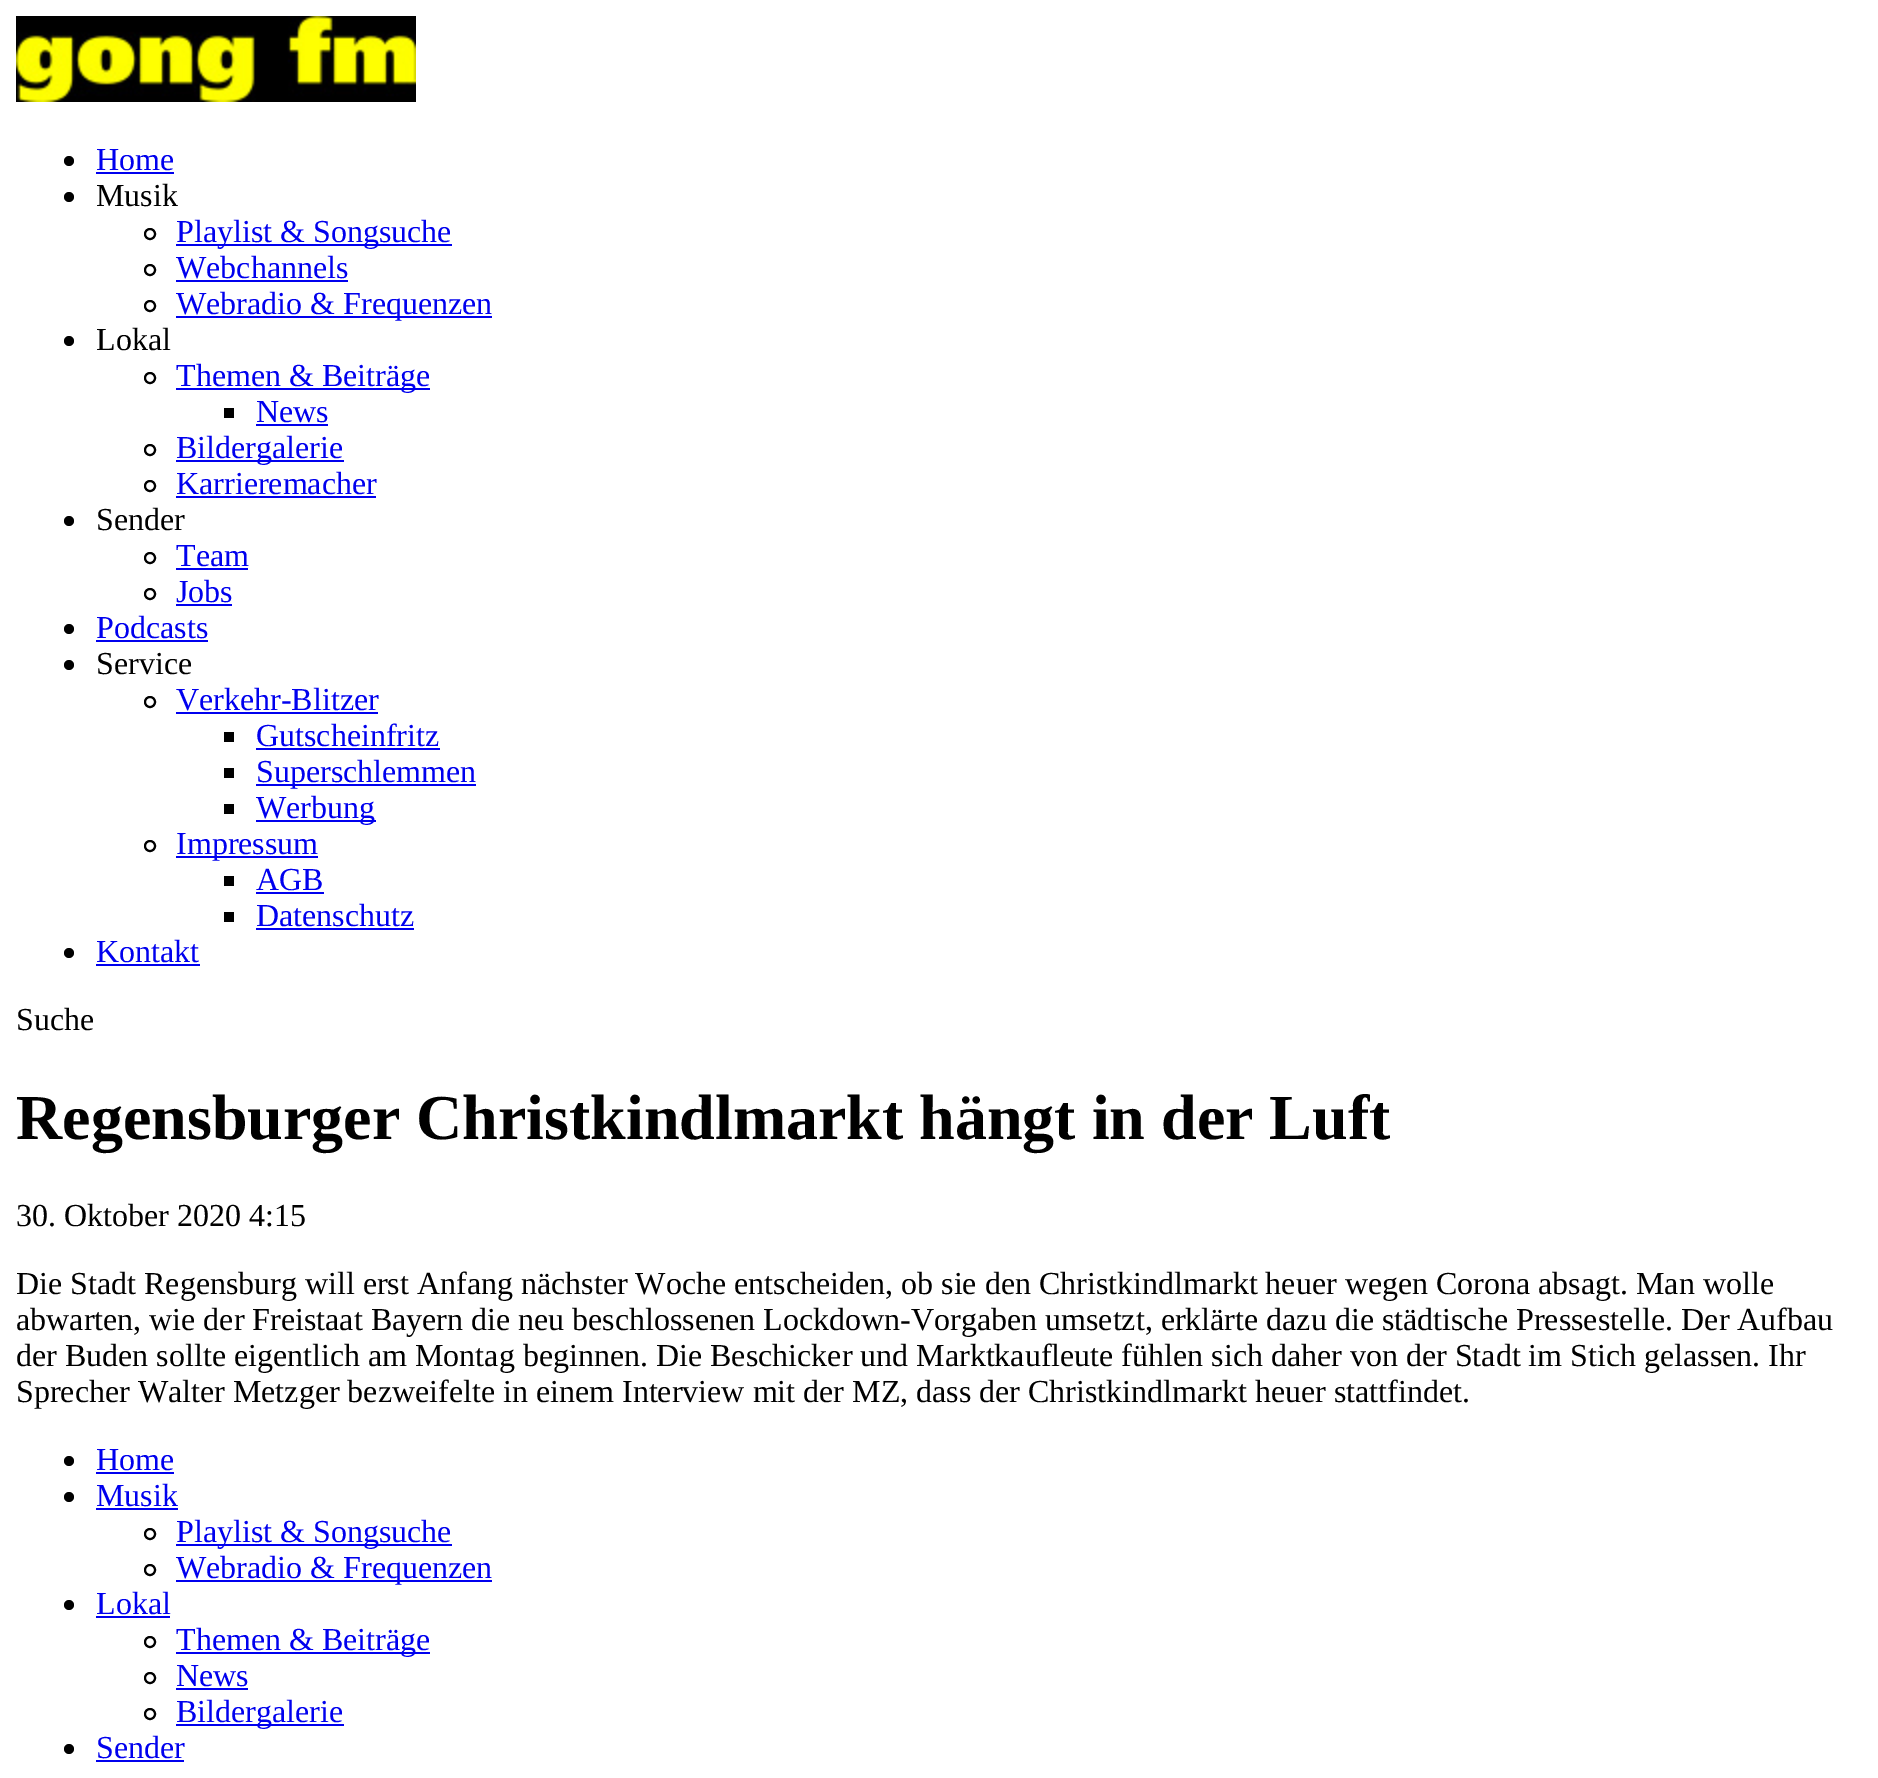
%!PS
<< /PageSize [1878 1778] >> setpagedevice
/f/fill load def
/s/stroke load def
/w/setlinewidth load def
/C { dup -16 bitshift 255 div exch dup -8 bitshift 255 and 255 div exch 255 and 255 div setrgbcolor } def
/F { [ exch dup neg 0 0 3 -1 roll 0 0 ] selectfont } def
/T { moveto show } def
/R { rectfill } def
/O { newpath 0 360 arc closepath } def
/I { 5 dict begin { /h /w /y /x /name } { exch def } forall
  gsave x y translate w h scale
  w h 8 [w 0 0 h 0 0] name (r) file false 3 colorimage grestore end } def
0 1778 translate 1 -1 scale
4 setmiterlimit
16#FFFFFF C
0 0 1878 1778 R
(1.rgb) 16 16 400 86 I
16#000000 C
69 161 5 O f
/LiberationSerif-Regular 32 F
16#0000EE C
(Home) 96 170 T
96 172 78 2 R
16#000000 C
69 197 5 O f
(Musik) 96 206 T
2 w
150 234 5 O s
16#0000EE C
176 244 276 2 R
(Playlist & Songsuche) 176 242 T
16#000000 C
150 270 5 O s
16#0000EE C
(Webchannels) 176 278 T
176 280 172 2 R
16#000000 C
150 306 5 O s
16#0000EE C
176 316 316 2 R
(Webradio & Frequenzen) 176 314 T
16#000000 C
69 341 5 O f
(Lokal) 96 350 T
150 378 5 O s
16#0000EE C
176 388 254 2 R
(Themen & Beiträge) 176 386 T
16#000000 C
224 408 10 10 R
16#0000EE C
(News) 256 422 T
256 424 72 2 R
16#000000 C
150 450 5 O s
16#0000EE C
176 460 168 2 R
(Bildergalerie) 176 458 T
16#000000 C
150 486 5 O s
16#0000EE C
(Karrieremacher) 176 494 T
176 496 200 2 R
16#000000 C
69 521 5 O f
(Sender) 96 530 T
150 558 5 O s
16#0000EE C
(Team) 176 566 T
176 568 72 2 R
16#000000 C
150 594 5 O s
16#0000EE C
(Jobs) 176 602 T
176 604 56 2 R
16#000000 C
69 629 5 O f
16#0000EE C
(Podcasts) 96 638 T
96 640 112 2 R
16#000000 C
69 665 5 O f
(Service) 96 674 T
150 702 5 O s
16#0000EE C
(Verkehr-Blitzer) 176 710 T
176 712 202 2 R
16#000000 C
224 732 10 10 R
16#0000EE C
(Gutscheinfritz) 256 746 T
256 748 184 2 R
16#000000 C
224 768 10 10 R
16#0000EE C
256 784 220 2 R
(Superschlemmen) 256 782 T
16#000000 C
224 804 10 10 R
16#0000EE C
256 820 120 2 R
(Werbung) 256 818 T
16#000000 C
150 846 5 O s
16#0000EE C
176 856 142 2 R
(Impressum) 176 854 T
16#000000 C
224 876 10 10 R
16#0000EE C
(AGB) 256 890 T
256 892 68 2 R
16#000000 C
224 912 10 10 R
16#0000EE C
(Datenschutz) 256 926 T
256 928 158 2 R
16#000000 C
69 953 5 O f
16#0000EE C
(Kontakt) 96 962 T
96 964 104 2 R
16#000000 C
(Suche) 16 1030 T
/LiberationSerif-Bold 64 F
(Regensburger Christkindlmarkt hängt in der Luft) 16 1139 T
/LiberationSerif-Regular 32 F
(30. Oktober 2020 4:15) 16 1226 T
(Die Stadt Regensburg will erst Anfang nächster Woche entscheiden, ob sie den Christkindlmarkt heuer wegen Corona absagt. Man wolle) 16 1294 T
(abwarten, wie der Freistaat Bayern die neu beschlossenen Lockdown-Vorgaben umsetzt, erklärte dazu die städtische Pressestelle. Der Aufbau) 16 1330 T
(der Buden sollte eigentlich am Montag beginnen. Die Beschicker und Marktkaufleute fühlen sich daher von der Stadt im Stich gelassen. Ihr) 16 1366 T
(Sprecher Walter Metzger bezweifelte in einem Interview mit der MZ, dass der Christkindlmarkt heuer stattfindet.) 16 1402 T
69 1461 5 O f
16#0000EE C
(Home) 96 1470 T
96 1472 78 2 R
16#000000 C
69 1497 5 O f
16#0000EE C
(Musik) 96 1506 T
96 1508 82 2 R
16#000000 C
150 1534 5 O s
16#0000EE C
176 1544 276 2 R
(Playlist & Songsuche) 176 1542 T
16#000000 C
150 1570 5 O s
16#0000EE C
176 1580 316 2 R
(Webradio & Frequenzen) 176 1578 T
16#000000 C
69 1605 5 O f
16#0000EE C
(Lokal) 96 1614 T
96 1616 74 2 R
16#000000 C
150 1642 5 O s
16#0000EE C
176 1652 254 2 R
(Themen & Beiträge) 176 1650 T
16#000000 C
150 1678 5 O s
16#0000EE C
(News) 176 1686 T
176 1688 72 2 R
16#000000 C
150 1714 5 O s
16#0000EE C
176 1724 168 2 R
(Bildergalerie) 176 1722 T
16#000000 C
69 1749 5 O f
16#0000EE C
(Sender) 96 1758 T
96 1760 88 2 R
showpage
